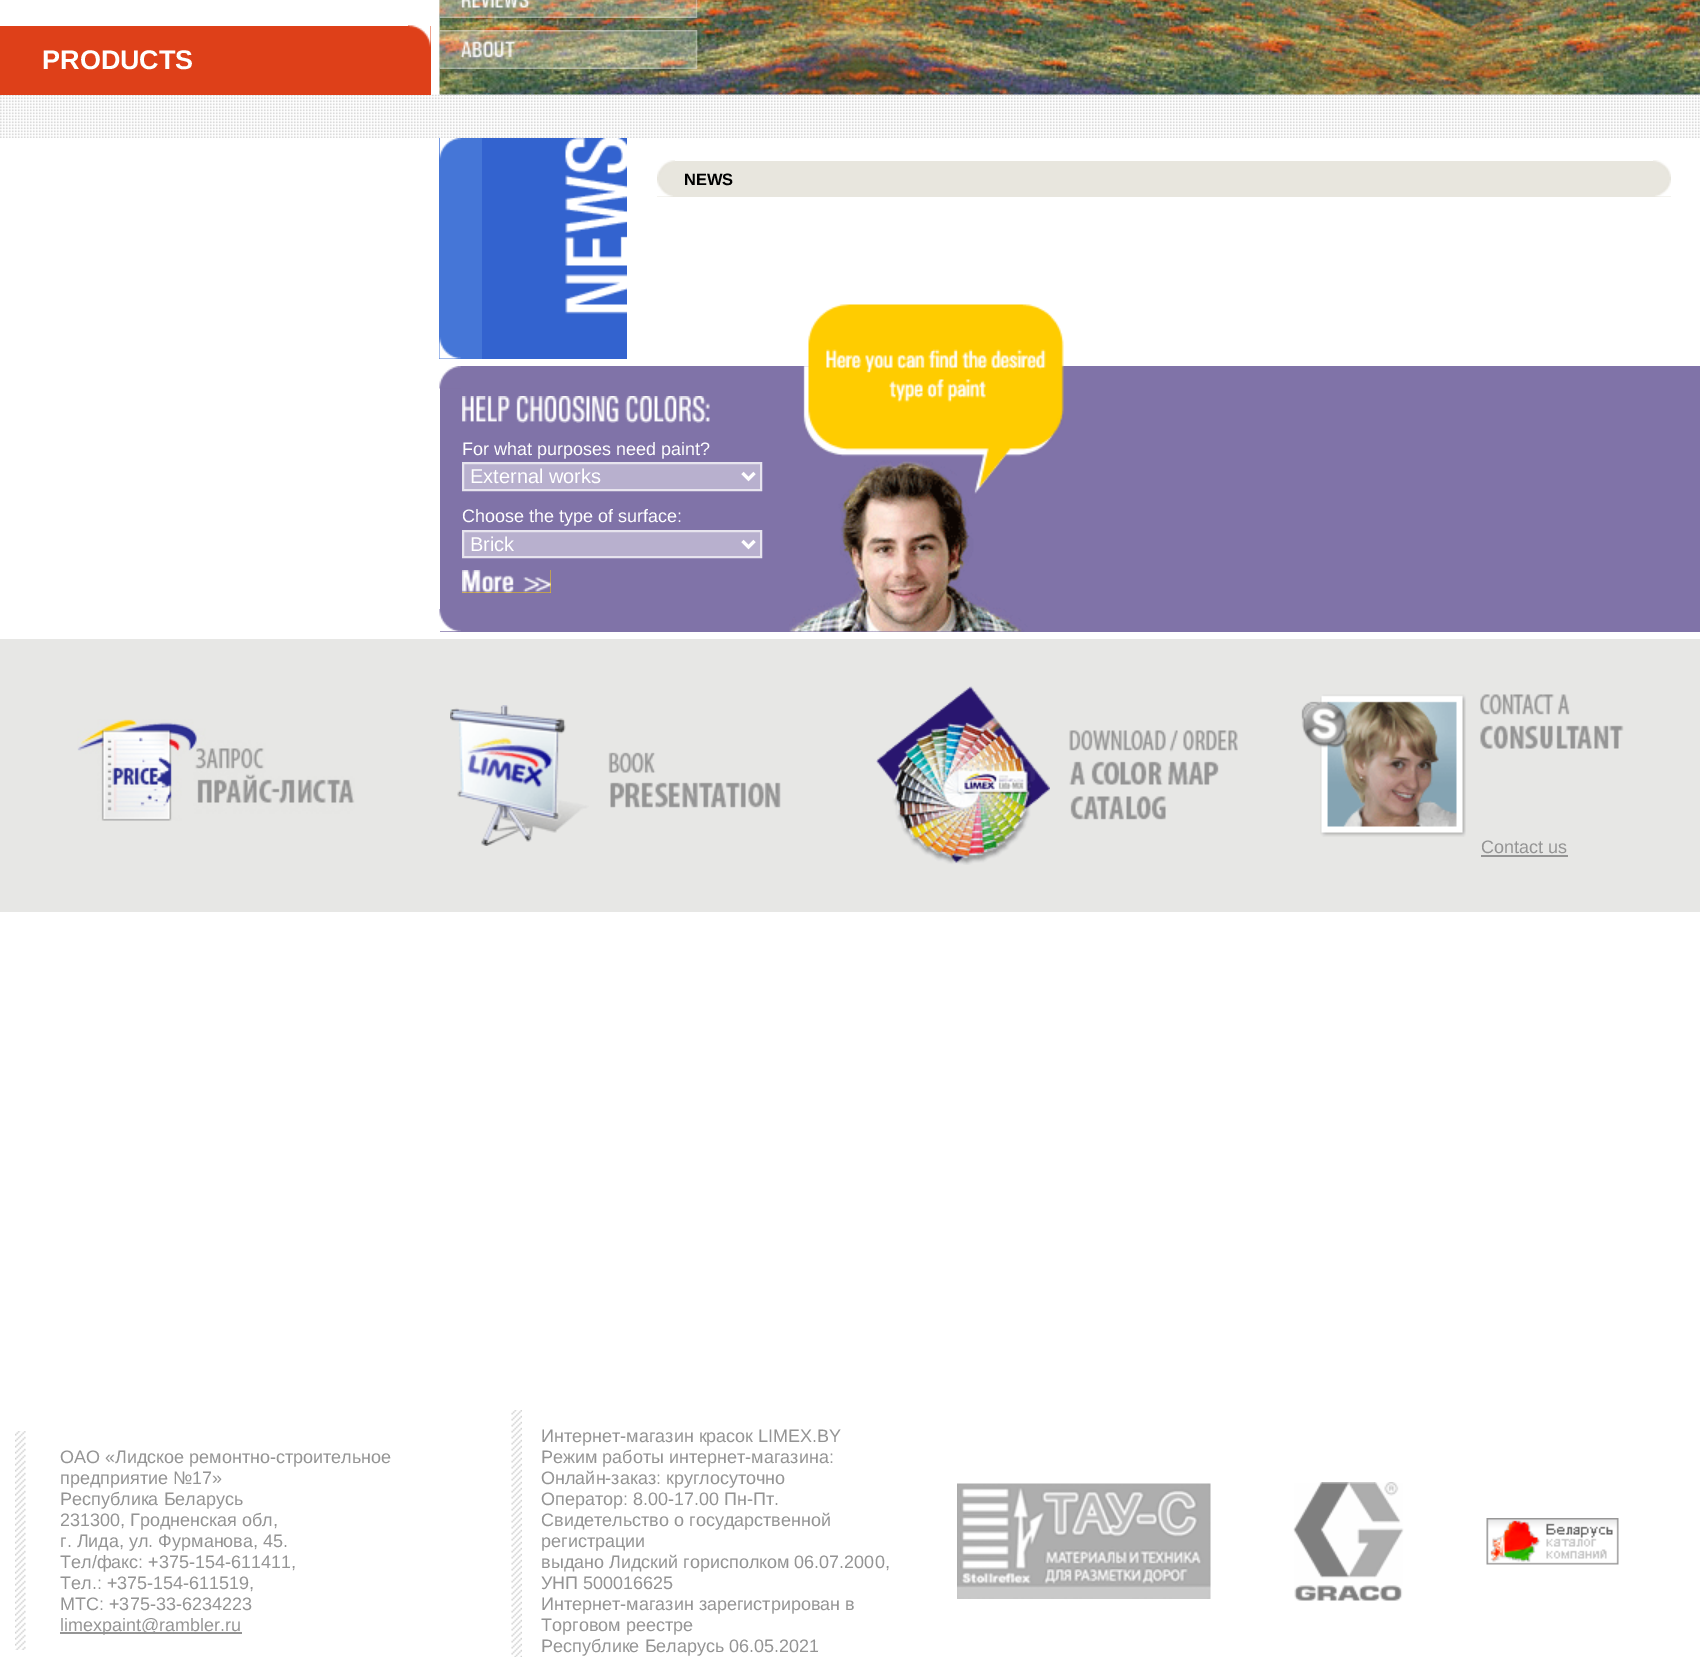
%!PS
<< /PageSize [1700 1657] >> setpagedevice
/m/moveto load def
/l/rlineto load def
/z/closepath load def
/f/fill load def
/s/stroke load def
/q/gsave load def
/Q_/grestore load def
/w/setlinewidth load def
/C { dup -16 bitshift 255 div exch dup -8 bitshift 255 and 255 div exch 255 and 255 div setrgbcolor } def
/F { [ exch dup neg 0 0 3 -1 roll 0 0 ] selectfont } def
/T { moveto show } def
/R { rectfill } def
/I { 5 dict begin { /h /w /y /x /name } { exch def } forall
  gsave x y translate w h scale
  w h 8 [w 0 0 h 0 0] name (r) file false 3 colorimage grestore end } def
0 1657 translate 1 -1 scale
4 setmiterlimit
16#FFFFFF C
0 0 1700 1657 R
16#CCCCCC C
440 94 1260 1 R
(1.rgb) 439 0 1261 95 I
(5.rgb) 0 94 1700 44 I
16#DE4019 C
0 26 431 69 R
(2.rgb) 408 25 23 22 I
/LiberationSans-Bold 27 F
16#FFFFFF C
(PRODUCTS) 42 69 T
(3.rgb) 439 0 259 18 I
(4.rgb) 439 30 259 39 I
16#3363CF C
482 138 145 221 R
16#4576D7 C
439 138 43 221 R
(6.rgb) 439 138 22 22 I
(7.rgb) 565 138 62 176 I
16#E8E6DE C
657 161 1014 36 R
(8.rgb) 657 160 18 17 I
(9.rgb) 1653 160 18 17 I
(10.rgb) 657 180 16 17 I
/LiberationSans-Bold 16.5 F
16#000000 C
(NEWS) 684 185 T
(11.rgb) 1655 180 16 17 I
(12.rgb) 439 337 22 22 I
16#8073A8 C
440 366 1260 266 R
(13.rgb) 789 304 275 328 I
(14.rgb) 439 366 22 23 I
(15.rgb) 462 396 248 27 I
/LiberationSans-Regular 18 F
16#FFFFFF C
(For what purposes need paint?) 462 455 T
16#B8B0CE C
463 463 m 298 0 l 0 27 l -298 0 l z q f Q_
16#E7E4EE C
2 w
s
16#FFFFFF C
3 w
742.5 473 m 6 6 l 6 -6 l s
/LiberationSans-Regular 20 F
(External works) 470 483 T
/LiberationSans-Regular 18 F
(Choose the type of surface:) 462 522 T
16#B8B0CE C
463 531 m 298 0 l 0 26 l -298 0 l z q f Q_
16#E7E4EE C
2 w
s
16#FFFFFF C
3 w
742.5 541 m 6 6 l 6 -6 l s
/LiberationSans-Regular 20 F
(Brick) 470 551 T
16#FFCC00 C
462 570 89 23 R
(16.rgb) 462 570 89 23 I
(17.rgb) 439 609 22 23 I
16#E7E7E5 C
0 639 1700 273 R
(18.rgb) 77 719 278 102 I
(19.rgb) 450 705 139 141 I
(20.rgb) 608 752 173 56 I
(21.rgb) 876 686 174 179 I
(22.rgb) 1069 730 169 90 I
(23.rgb) 1301 694 165 143 I
(24.rgb) 1480 694 144 55 I
/LiberationSans-Regular 18 F
16#949494 C
(Contact us) 1481 853 T
1481 855 87 2 R
(25.rgb) 15 1431 11 219 I
(ОАО «Лидское ремонтно-строительное) 60 1463 T
(предприятие №17») 60 1484 T
(Республика Беларусь) 60 1505 T
(231300, Гродненская обл,) 60 1526 T
(г. Лида, ул. Фурманова, 45.) 60 1547 T
(Тел/факс: +375-154-611411,) 60 1568 T
(Тел.: +375-154-611519,) 60 1589 T
(МТС: +375-33-6234223) 60 1610 T
60 1632 182 2 R
(limexpaint@rambler.ru) 60 1631 T
(26.rgb) 511 1410 11 247 I
(Интернет-магазин красок LIMEX.BY) 541 1442 T
(Режим работы интернет-магазина:) 541 1463 T
(Онлайн-заказ: круглосуточно) 541 1484 T
(Оператор: 8.00-17.00 Пн-Пт.) 541 1505 T
(Свидетельство о государственной) 541 1526 T
(регистрации) 541 1547 T
(выдано Лидский горисполком 06.07.2000,) 541 1568 T
(УНП 500016625) 541 1589 T
(Интернет-магазин зарегистрирован в) 541 1610 T
(Торговом реестре) 541 1631 T
(Республике Беларусь 06.05.2021) 541 1652 T
(27.rgb) 957 1483 254 116 I
(28.rgb) 1293 1482 111 119 I
(29.rgb) 1486 1518 133 47 I
showpage
